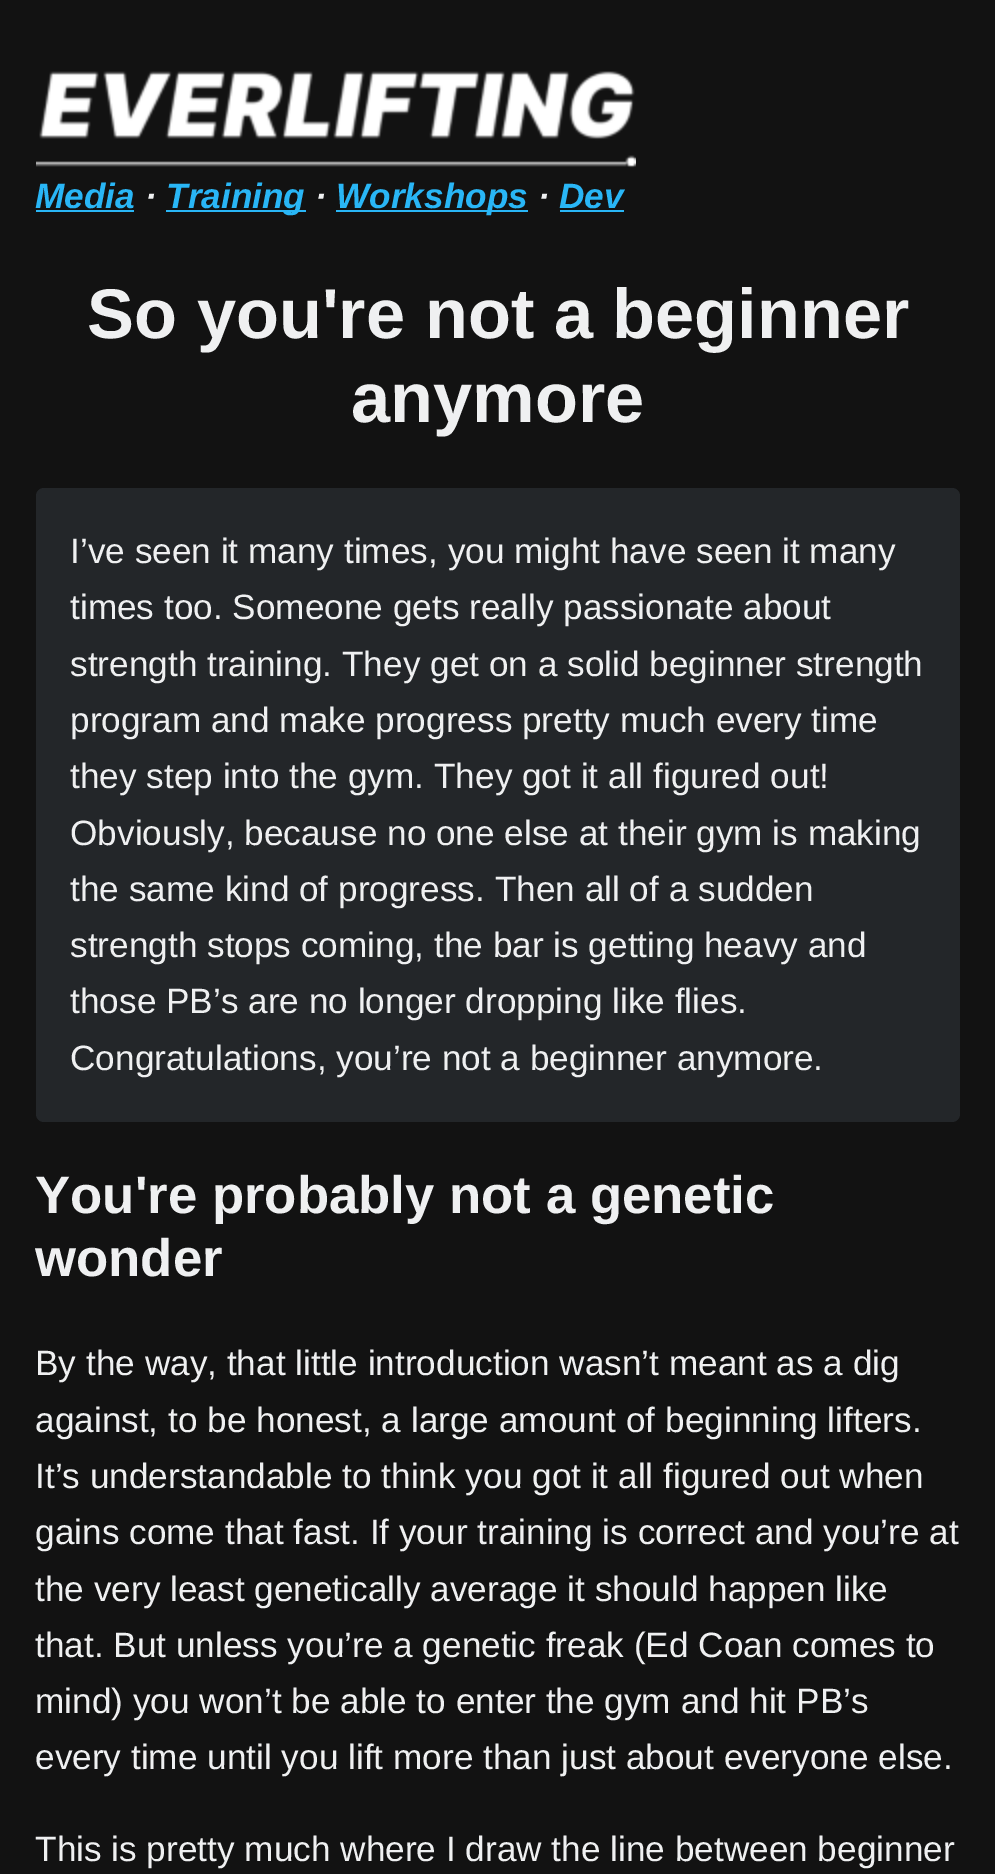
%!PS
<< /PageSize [995 1874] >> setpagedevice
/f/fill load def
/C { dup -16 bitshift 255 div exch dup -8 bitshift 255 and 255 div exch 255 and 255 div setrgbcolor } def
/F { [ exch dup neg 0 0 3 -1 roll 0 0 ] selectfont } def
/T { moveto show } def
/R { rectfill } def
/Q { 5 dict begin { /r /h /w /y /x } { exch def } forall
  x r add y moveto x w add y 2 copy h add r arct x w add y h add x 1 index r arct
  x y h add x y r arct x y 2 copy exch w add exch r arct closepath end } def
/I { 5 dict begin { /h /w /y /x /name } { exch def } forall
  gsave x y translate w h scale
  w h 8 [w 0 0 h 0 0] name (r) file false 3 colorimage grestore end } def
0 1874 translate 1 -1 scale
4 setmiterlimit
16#121212 C
0 0 995 1874 R
(1.rgb) 36 71 600 97 I
/LiberationSans-BoldItalic 35.2 F
16#29B6F6 C
(Media) 35 208 T
36 210 98 2 R
16#EFF0F1 C
(·) 145 208 T
16#29B6F6 C
166 210 140 2 R
(Training) 166 208 T
16#EFF0F1 C
(·) 315 208 T
16#29B6F6 C
336 210 192 2 R
(Workshops) 336 208 T
16#EFF0F1 C
(·) 538 208 T
16#29B6F6 C
(Dev) 559 208 T
560 210 64 2 R
/LiberationSans-Bold 70.4 F
16#EFF0F1 C
(So you're not a beginner) 87 338 T
(anymore) 351 422 T
16#232629 C
36 488 924 634 8 Q f
/LiberationSans-Regular 35.2 F
16#EFF0F1 C
(I’ve seen it many times, you might have seen it many) 70 563 T
(times too. Someone gets really passionate about) 70 619 T
(strength training. They get on a solid beginner strength) 70 676 T
(program and make progress pretty much every time) 70 732 T
(they step into the gym. They got it all figured out!) 70 788 T
(Obviously, because no one else at their gym is making) 70 845 T
(the same kind of progress. Then all of a sudden) 70 901 T
(strength stops coming, the bar is getting heavy and) 70 957 T
(those PB’s are no longer dropping like flies.) 70 1013 T
(Congratulations, you’re not a beginner anymore.) 70 1070 T
/LiberationSans-Bold 52.75 F
(You're probably not a genetic) 35 1213 T
(wonder) 35 1276 T
/LiberationSans-Regular 35.2 F
(By the way, that little introduction wasn’t meant as a dig) 35 1375 T
(against, to be honest, a large amount of beginning lifters.) 35 1432 T
(It’s understandable to think you got it all figured out when) 35 1488 T
(gains come that fast. If your training is correct and you’re at) 35 1544 T
(the very least genetically average it should happen like) 35 1601 T
(that. But unless you’re a genetic freak \(Ed Coan comes to) 35 1657 T
(mind\) you won’t be able to enter the gym and hit PB’s) 35 1713 T
(every time until you lift more than just about everyone else.) 35 1769 T
(This is pretty much where I draw the line between beginner) 35 1861 T
showpage
